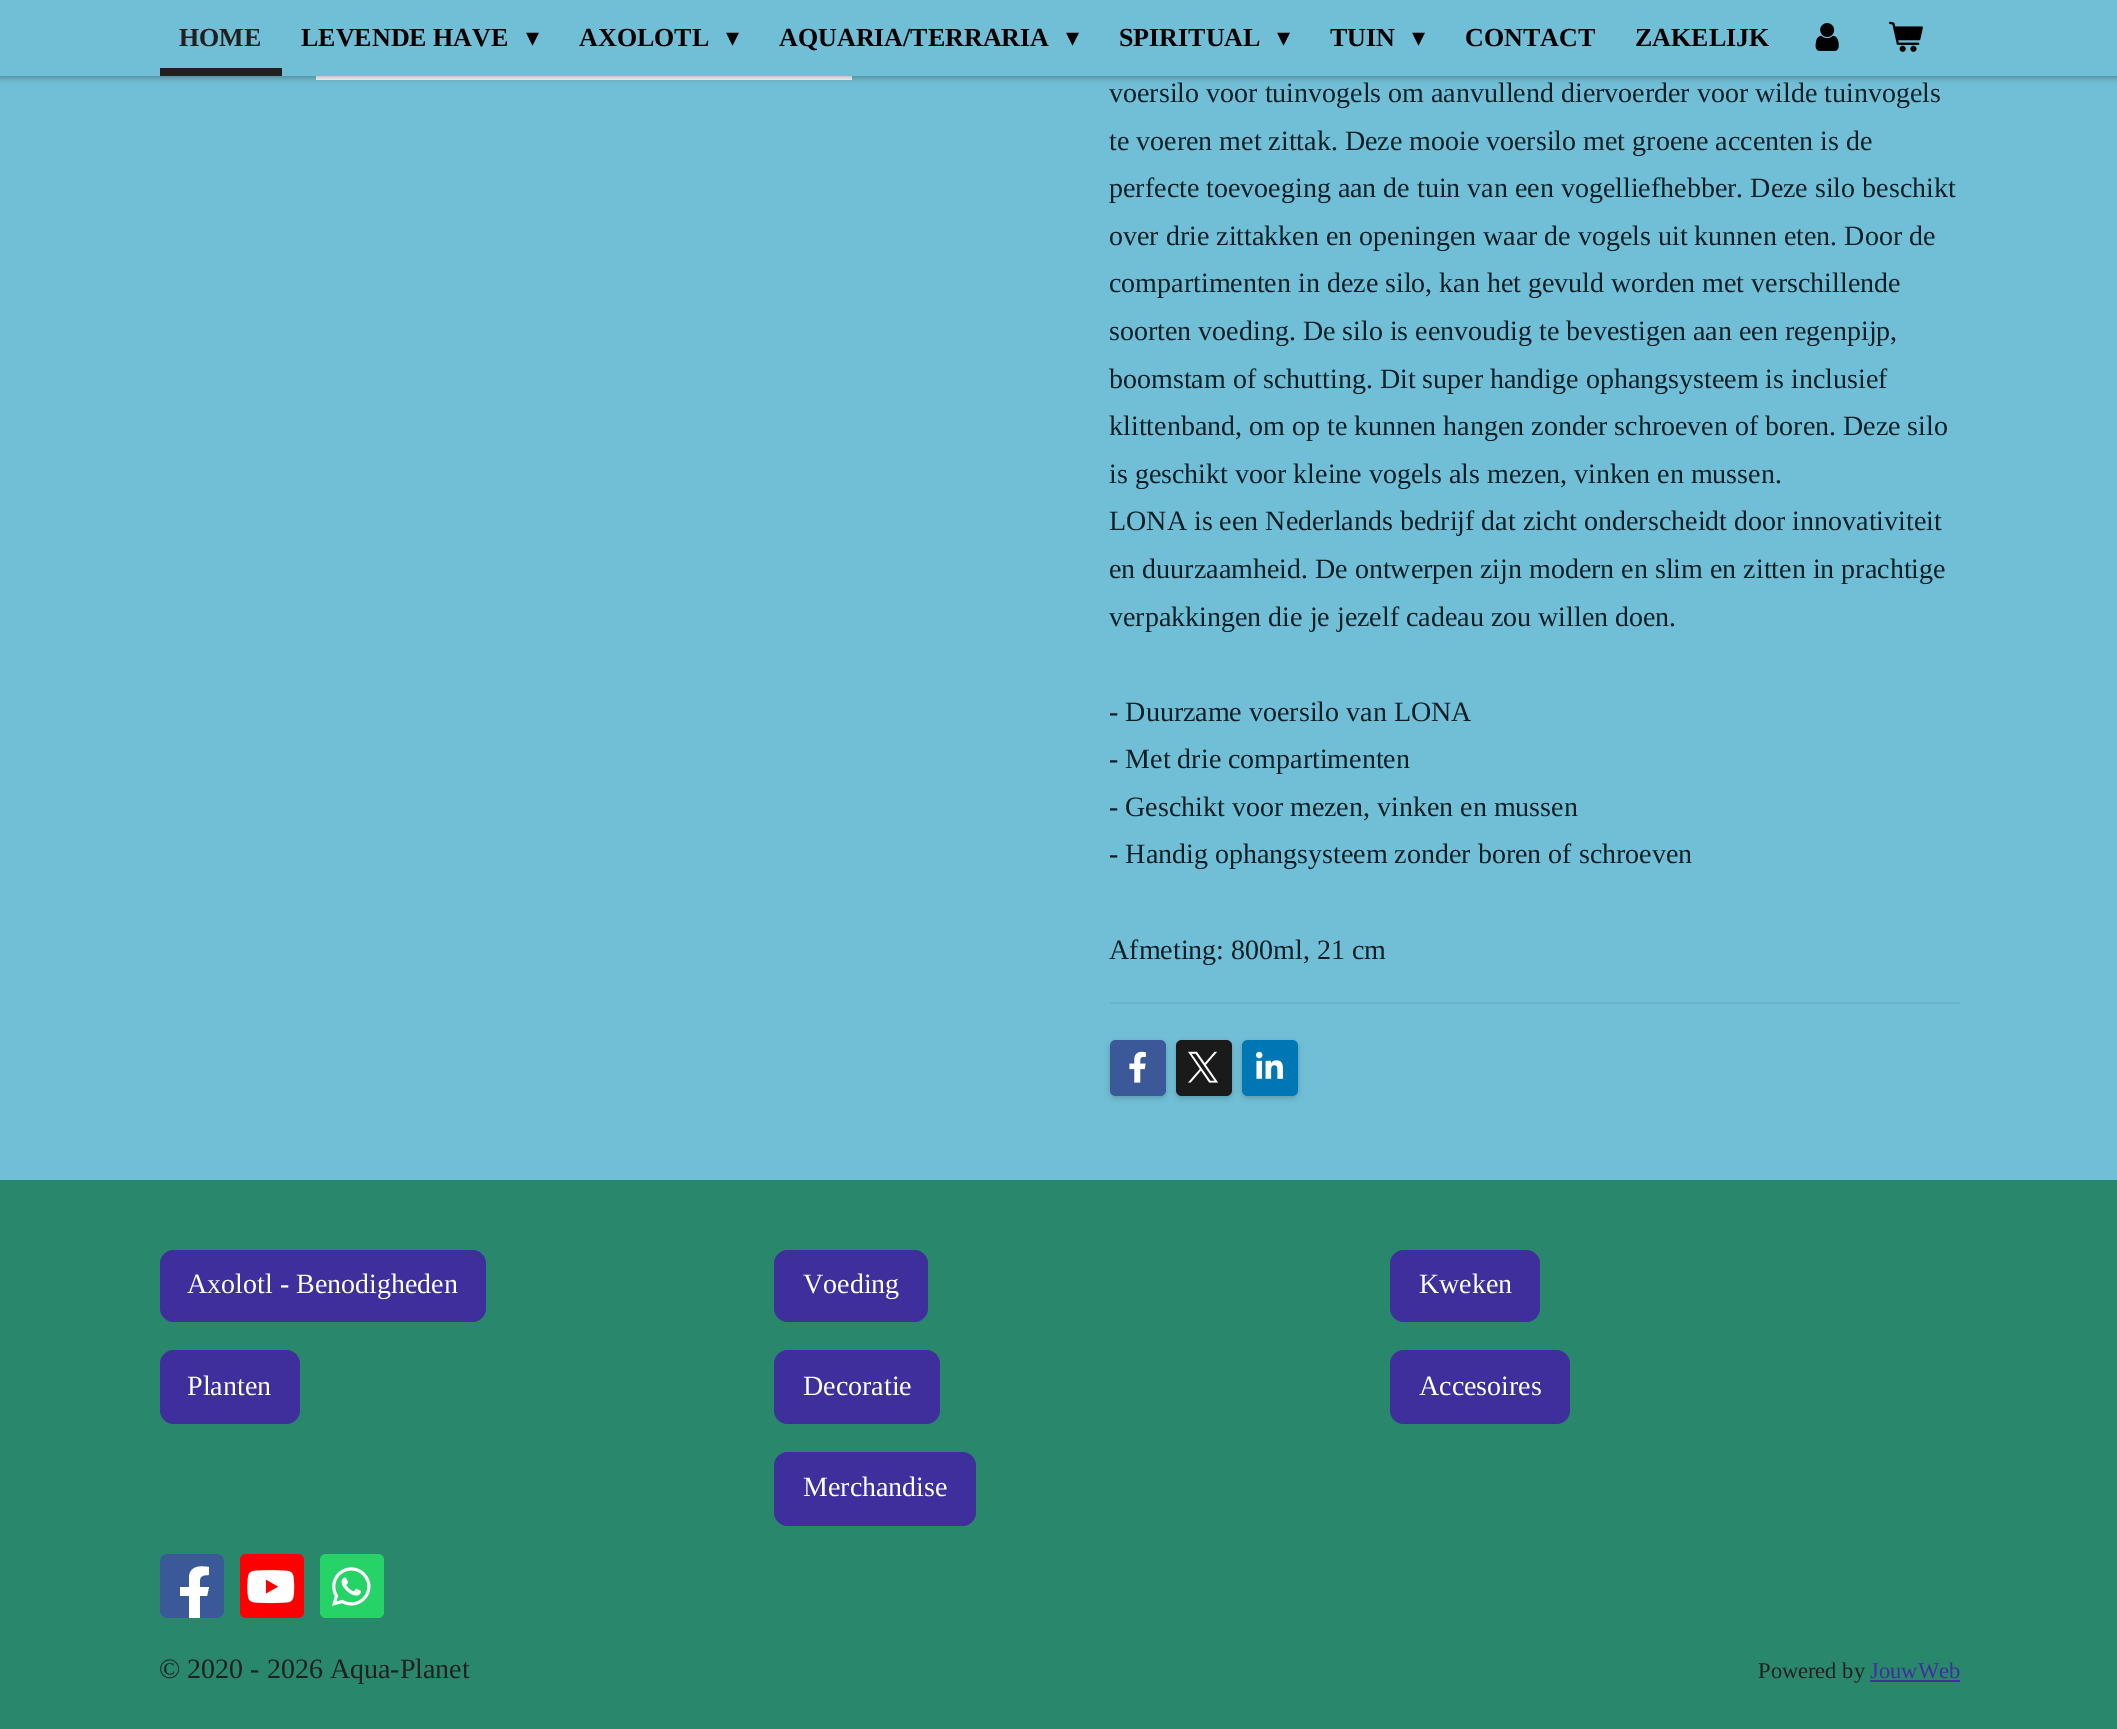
%!PS
<< /PageSize [2117 1729] /PageUsesTransparency true >> setpagedevice
/m/moveto load def
/l/rlineto load def
/c/rcurveto load def
/z/closepath load def
/f/fill load def
/C { dup -16 bitshift 255 div exch dup -8 bitshift 255 and 255 div exch 255 and 255 div setrgbcolor } def
/F { [ exch dup neg 0 0 3 -1 roll 0 0 ] selectfont } def
/T { moveto show } def
/R { rectfill } def
/A { dup .setfillconstantalpha .setstrokeconstantalpha } def
/Q { 5 dict begin { /r /h /w /y /x } { exch def } forall
  x r add y moveto x w add y 2 copy h add r arct x w add y h add x 1 index r arct
  x y h add x y r arct x y 2 copy exch w add exch r arct closepath end } def
/S { 12 dict begin { /a /b /q /h /w /y /x } { exch def } forall gsave /was 0 def
  9 -2 -9 { dup b mul 4 div /e exch def 1 sub .425 mul 2.718 exch exp 1 add a .99 .min exch div /now exch def
    1 1 now sub 1 was sub div sub A /was now def
    w h .min e 2 mul add 0 gt { x e sub y e sub w e 2 mul add h e 2 mul add
      q e add b .6 mul add w h .min 2 div e add .min 0 .max Q fill } if } for grestore end } def
/I { 5 dict begin { /h /w /y /x /name } { exch def } forall
  gsave x y translate w h scale
  w h 8 [w 0 0 h 0 0] name (r) file false 3 colorimage grestore end } def
0 .pushpdf14devicefilter
0 1729 translate 1 -1 scale
4 setmiterlimit
16#71BED7 C
0 0 2117 1729 R
(3.rgb) 316 76 536 4 I
16#000000 C
0 -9 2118 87 0 3 .3 S
16#71BED7 C
0 0 2117 76 R
16#202020 C
160 68 122 8 R
/LiberationSerif-Bold 26 F
(HOME) 179 46 T
16#000000 C
(LEVENDE HAVE) 301 46 T
/DejaVuSans-Regular 26 F
(▾) 526 46 T
/LiberationSerif-Bold 26 F
(AXOLOTL) 579 46 T
/DejaVuSans-Regular 26 F
(▾) 726 46 T
/LiberationSerif-Bold 26 F
(AQUARIA/TERRARIA) 779 46 T
/DejaVuSans-Regular 26 F
(▾) 1066 46 T
/LiberationSerif-Bold 26 F
(SPIRITUAL) 1119 46 T
/DejaVuSans-Regular 26 F
(▾) 1277 46 T
/LiberationSerif-Bold 26 F
(TUIN) 1330 46 T
/DejaVuSans-Regular 26 F
(▾) 1412 46 T
/LiberationSerif-Bold 26 F
(CONTACT) 1465 46 T
(ZAKELIJK) 1635 46 T
(1.rgb) 1815 23 24 28 I
(2.rgb) 1889 21 34 31 I
/LiberationSerif-Regular 28 F
16#0A1F25 C
(voersilo voor tuinvogels om aanvullend diervoerder voor wilde tuinvogels) 1109 102 T
(te voeren met zittak. Deze mooie voersilo met groene accenten is de) 1109 150 T
(perfecte toevoeging aan de tuin van een vogelliefhebber. Deze silo beschikt) 1109 197 T
(over drie zittakken en openingen waar de vogels uit kunnen eten. Door de) 1109 245 T
(compartimenten in deze silo, kan het gevuld worden met verschillende) 1109 292 T
(soorten voeding. De silo is eenvoudig te bevestigen aan een regenpijp,) 1109 340 T
(boomstam of schutting. Dit super handige ophangsysteem is inclusief) 1109 388 T
(klittenband, om op te kunnen hangen zonder schroeven of boren. Deze silo) 1109 435 T
(is geschikt voor kleine vogels als mezen, vinken en mussen.) 1109 483 T
(LONA is een Nederlands bedrijf dat zicht onderscheidt door innovativiteit) 1109 530 T
(en duurzaamheid. De ontwerpen zijn modern en slim en zitten in prachtige) 1109 578 T
(verpakkingen die je jezelf cadeau zou willen doen.) 1109 626 T
(- Duurzame voersilo van LONA) 1109 721 T
(- Met drie compartimenten) 1109 768 T
/LiberationSerif-Bold 28 F
(-) 1109 816 T
/LiberationSerif-Regular 28 F
(Geschikt voor mezen, vinken en mussen) 1125 816 T
(- Handig ophangsysteem zonder boren of schroeven) 1109 863 T
(Afmeting: 800ml, 21 cm) 1109 959 T
16#6AB3CB C
1110 1002 850 2 R
16#000000 C
1110 1042 56 56 6 3 .2 S
16#3B5998 C
1110 1040 56 56 6 Q f
(4.rgb) 1129 1051 17 32 I
16#000000 C
1176 1042 56 56 6 3 .2 S
16#1A1A1A C
1176 1040 56 56 6 Q f
(5.rgb) 1188 1051 30 32 I
16#000000 C
1242 1042 56 56 6 3 .2 S
16#0077B5 C
1242 1040 56 56 6 Q f
(6.rgb) 1256 1051 27 28 I
16#29876B C
0 1180 2117 549 R
16#3E2F9D C
160 1250 326 72 14 Q f
16#FFFFFF C
(Axolotl - Benodigheden) 187 1293 T
16#3E2F9D C
774 1250 154 72 14 Q f
16#FFFFFF C
(Voeding) 803 1293 T
16#3E2F9D C
1390 1250 150 72 14 Q f
16#FFFFFF C
(Kweken) 1419 1293 T
16#3E2F9D C
160 1350 140 74 14 Q f
16#FFFFFF C
(Planten) 187 1395 T
16#3E2F9D C
774 1350 166 74 14 Q f
16#FFFFFF C
(Decoratie) 803 1395 T
16#3E2F9D C
1390 1350 180 74 14 Q f
16#FFFFFF C
(Accesoires) 1419 1395 T
16#3E2F9D C
774 1452 202 74 14 Q f
16#FFFFFF C
(Merchandise) 803 1496 T
16#3B5998 C
160 1554 64 64 8 Q f
16#FFFFFF C
207 1596 m -7 0 l 0 22 l -11 0 l 0 -22 l -9 0 l 0 -9 l 9 0 l 0 -11 l 2 -11 12 -10 20 -9 c 0 8 l -11 0 -9 4 -9 12 c 9 0 l z f
16#FF0000 C
240 1554 64 64 6 Q f
(7.rgb) 247 1570 48 34 I
16#25D366 C
320 1554 64 64 6 Q f
(8.rgb) 332 1567 39 39 I
16#202020 C
(© 2020 - 2026 Aqua-Planet) 159 1678 T
/LiberationSerif-Regular 22.5 F
(Powered by) 1758 1678 T
16#3E2F9D C
(JouwWeb) 1870 1678 T
1870 1680 90 2 R
.poppdf14devicefilter showpage
